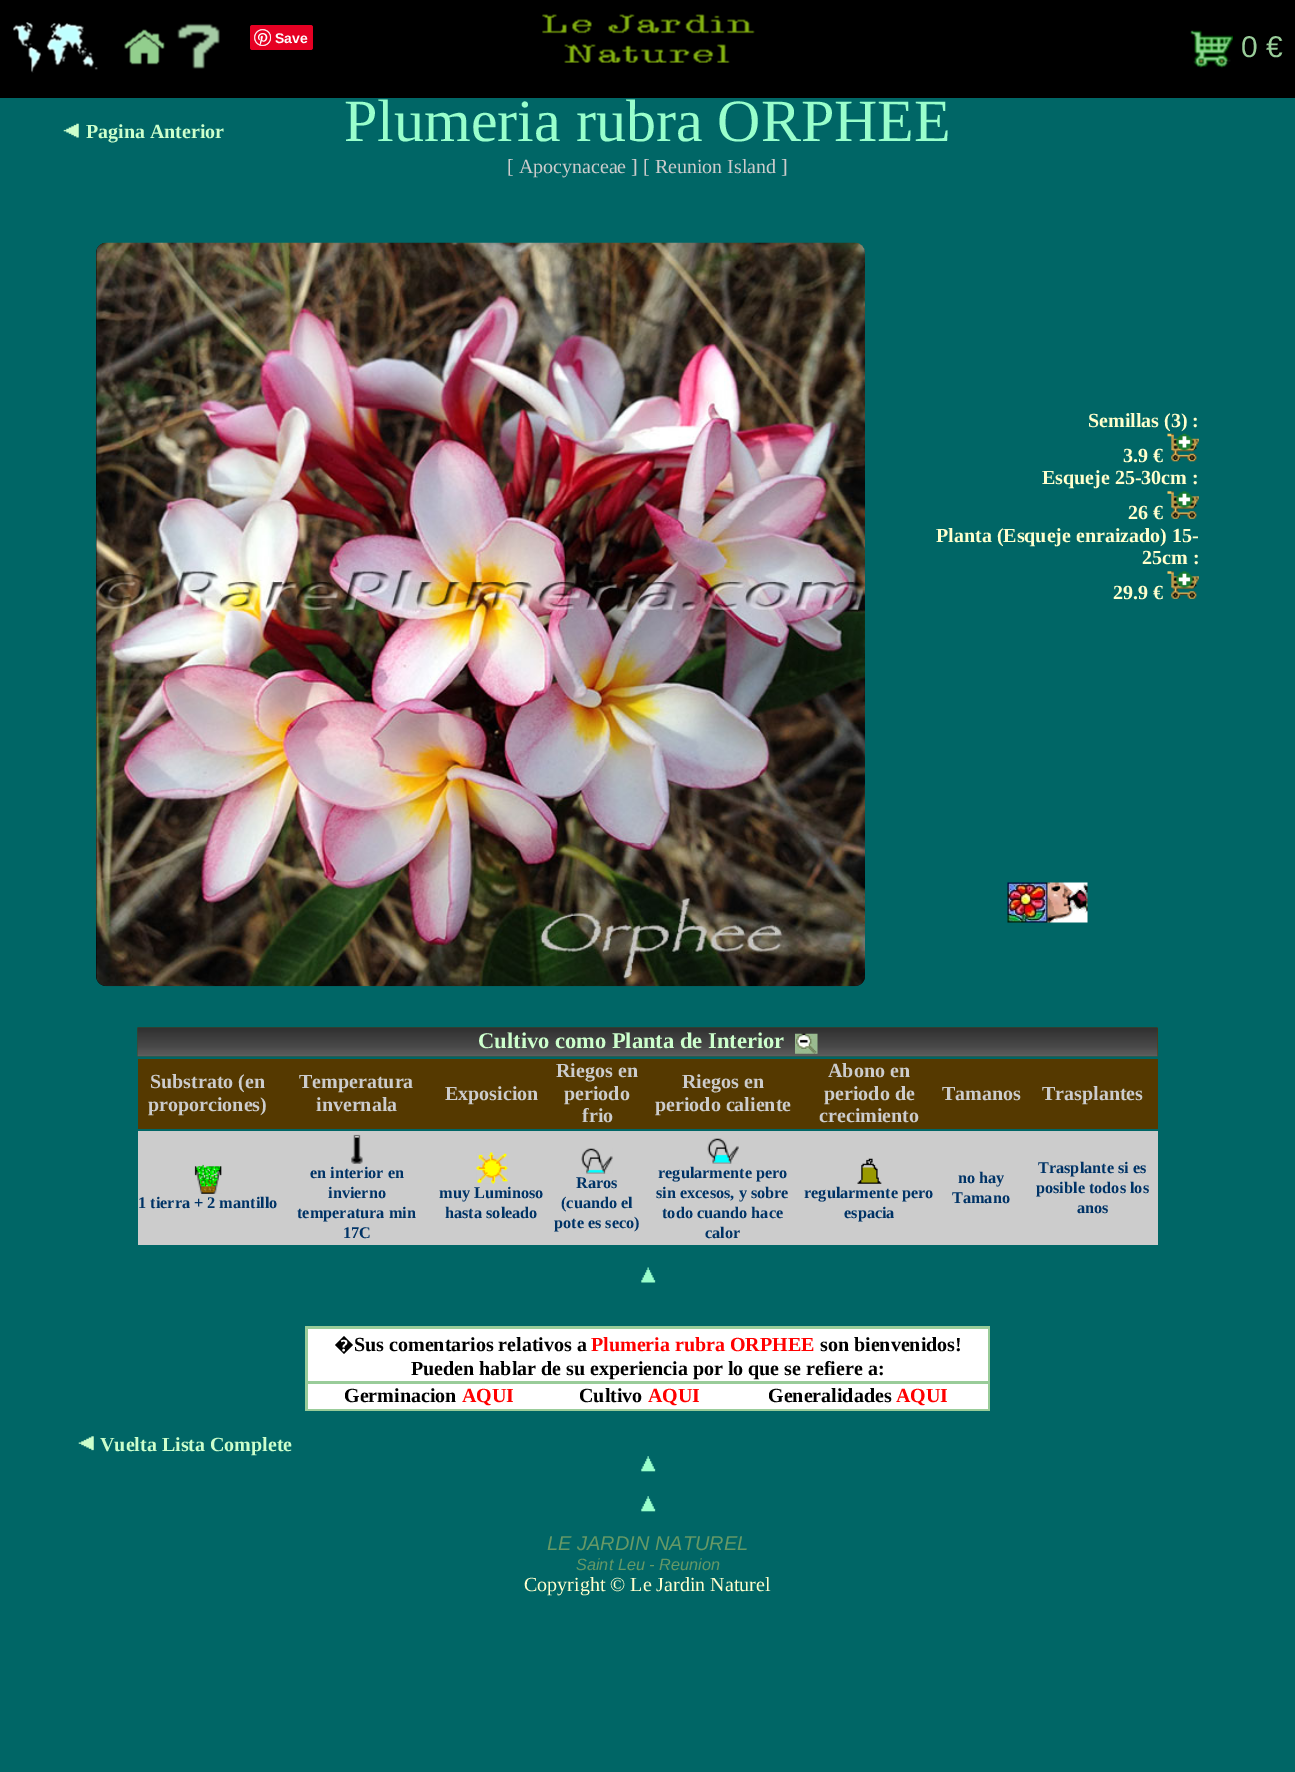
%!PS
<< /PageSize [1295 1772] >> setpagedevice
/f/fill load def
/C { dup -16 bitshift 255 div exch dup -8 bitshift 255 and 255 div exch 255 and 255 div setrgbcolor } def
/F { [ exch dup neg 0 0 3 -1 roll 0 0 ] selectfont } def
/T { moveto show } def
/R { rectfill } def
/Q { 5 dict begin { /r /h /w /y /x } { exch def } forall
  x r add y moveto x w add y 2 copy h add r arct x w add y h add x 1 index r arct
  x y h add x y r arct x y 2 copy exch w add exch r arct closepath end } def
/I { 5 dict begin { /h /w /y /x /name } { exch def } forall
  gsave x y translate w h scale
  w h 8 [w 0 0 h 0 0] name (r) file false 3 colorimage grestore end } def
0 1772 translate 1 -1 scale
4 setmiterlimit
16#006666 C
0 0 1295 1772 R
16#000000 C
0 0 1295 98 R
16#E60023 C
250 25 63 25 2.5 Q f
(1.rgb) 254 29 17 17 I
/LiberationSans-Bold 14 F
16#FFFFFF C
(Save) 275 43 T
(2.rgb) 13 22 85 51 I
(3.rgb) 124 29 41 36 I
(4.rgb) 177 23 43 46 I
(5.rgb) 542 14 213 49 I
(6.rgb) 1190 30 43 38 I
/LiberationSans-Regular 30 F
16#99CC99 C
(0 €) 1241 57 T
(7.rgb) 63 123 16 15 I
/LiberationSerif-Bold 20 F
16#CCFFCC C
(Pagina Anterior) 86 138 T
/LiberationSerif-Regular 60 F
16#99FFCC C
(Plumeria rubra ORPHEE) 344 141 T
/LiberationSerif-Regular 20 F
16#CCCCCC C
([ Apocynaceae ] [ Reunion Island ]) 507 173 T
16#000000 C
96 243 769 743 10 Q f
(8.rgb) 96 242 769 745 I
/LiberationSerif-Bold 20 F
16#FFFFCC C
(Semillas \(3\) :) 1088 427 T
(3.9 €) 1123 462 T
(9.rgb) 1167 433 32 29 I
(Esqueje 25-30cm :) 1042 484 T
(26 €) 1128 519 T
(10.rgb) 1167 491 32 28 I
(Planta \(Esqueje enraizado\) 15-) 936 542 T
(25cm :) 1142 564 T
(29.9 €) 1113 599 T
(11.rgb) 1167 571 32 28 I
(12.rgb) 1007 882 41 41 I
(13.rgb) 1047 882 41 41 I
(14.rgb) 137 1027 1021 30 I
/LiberationSerif-Bold 22.5 F
16#CCFFCC C
(Cultivo como Planta de Interior) 478 1048 T
(15.rgb) 795 1033 23 21 I
16#553900 C
138 1059 1020 70 R
/LiberationSerif-Bold 20 F
16#CCCCCC C
(Substrato \(en) 150 1088 T
(proporciones\)) 148 1111 T
(Temperatura) 299 1088 T
(invernala) 316 1111 T
(Exposicion) 445 1100 T
(Riegos en) 556 1077 T
(periodo) 564 1100 T
(frio) 582 1122 T
(Riegos en) 682 1088 T
(periodo caliente) 655 1111 T
(Abono en) 828 1077 T
(periodo de) 824 1100 T
(crecimiento) 819 1122 T
(Tamanos) 942 1100 T
(Trasplantes) 1042 1100 T
138 1131 1020 114 R
(16.rgb) 194 1164 28 30 I
/LiberationSerif-Bold 16.25 F
16#003366 C
(1 tierra + 2 mantillo) 138 1208 T
(17.rgb) 351 1134 12 30 I
(en interior en) 310 1178 T
(invierno) 328 1198 T
(temperatura min) 297 1218 T
(17C) 343 1238 T
(18.rgb) 476 1152 32 32 I
(muy Luminoso) 439 1198 T
(hasta soleado) 445 1218 T
(19.rgb) 581 1148 32 26 I
(Raros) 576 1188 T
(\(cuando el) 561 1208 T
(pote es seco\)) 554 1228 T
(20.rgb) 707 1138 32 26 I
(regularmente pero) 658 1178 T
(sin excesos, y sobre) 656 1198 T
(todo cuando hace) 662 1218 T
(calor) 705 1238 T
(21.rgb) 857 1158 25 26 I
(regularmente pero) 804 1198 T
(espacia) 844 1218 T
(no hay) 958 1183 T
(Tamano) 952 1203 T
(Trasplante si es) 1038 1173 T
(posible todos los) 1036 1193 T
(anos) 1077 1213 T
(22.rgb) 641 1267 15 16 I
16#99CC99 C
305 1326 685 85 R
16#FFFFFF C
308 1329 680 52 R
/NotoSans-Black 20 F
16#000000 C
(�) 334 1351 T
/LiberationSerif-Bold 20 F
(Sus comentarios relativos a) 354 1351 T
16#FF0000 C
(Plumeria rubra ORPHEE) 591 1351 T
16#000000 C
(son bienvenidos!) 820 1351 T
(Pueden hablar de su experiencia por lo que se refiere a:) 411 1375 T
16#FFFFFF C
308 1384 680 25 R
16#000000 C
(Germinacion) 344 1402 T
16#FF0000 C
(AQUI) 462 1402 T
16#000000 C
(Cultivo) 579 1402 T
16#FF0000 C
(AQUI) 648 1402 T
16#000000 C
(Generalidades) 768 1402 T
16#FF0000 C
(AQUI) 896 1402 T
(23.rgb) 78 1436 16 15 I
16#CCFFCC C
(Vuelta Lista Complete) 100 1451 T
(24.rgb) 641 1456 15 16 I
(24.rgb) 641 1496 15 16 I
/LiberationSans-Italic 20 F
16#669966 C
(LE JARDIN NATUREL) 547 1550 T
/LiberationSans-Italic 16.25 F
(Saint Leu - Reunion) 576 1570 T
/LiberationSerif-Regular 20 F
16#FFFFCC C
(Copyright © Le Jardin Naturel) 524 1591 T
showpage
